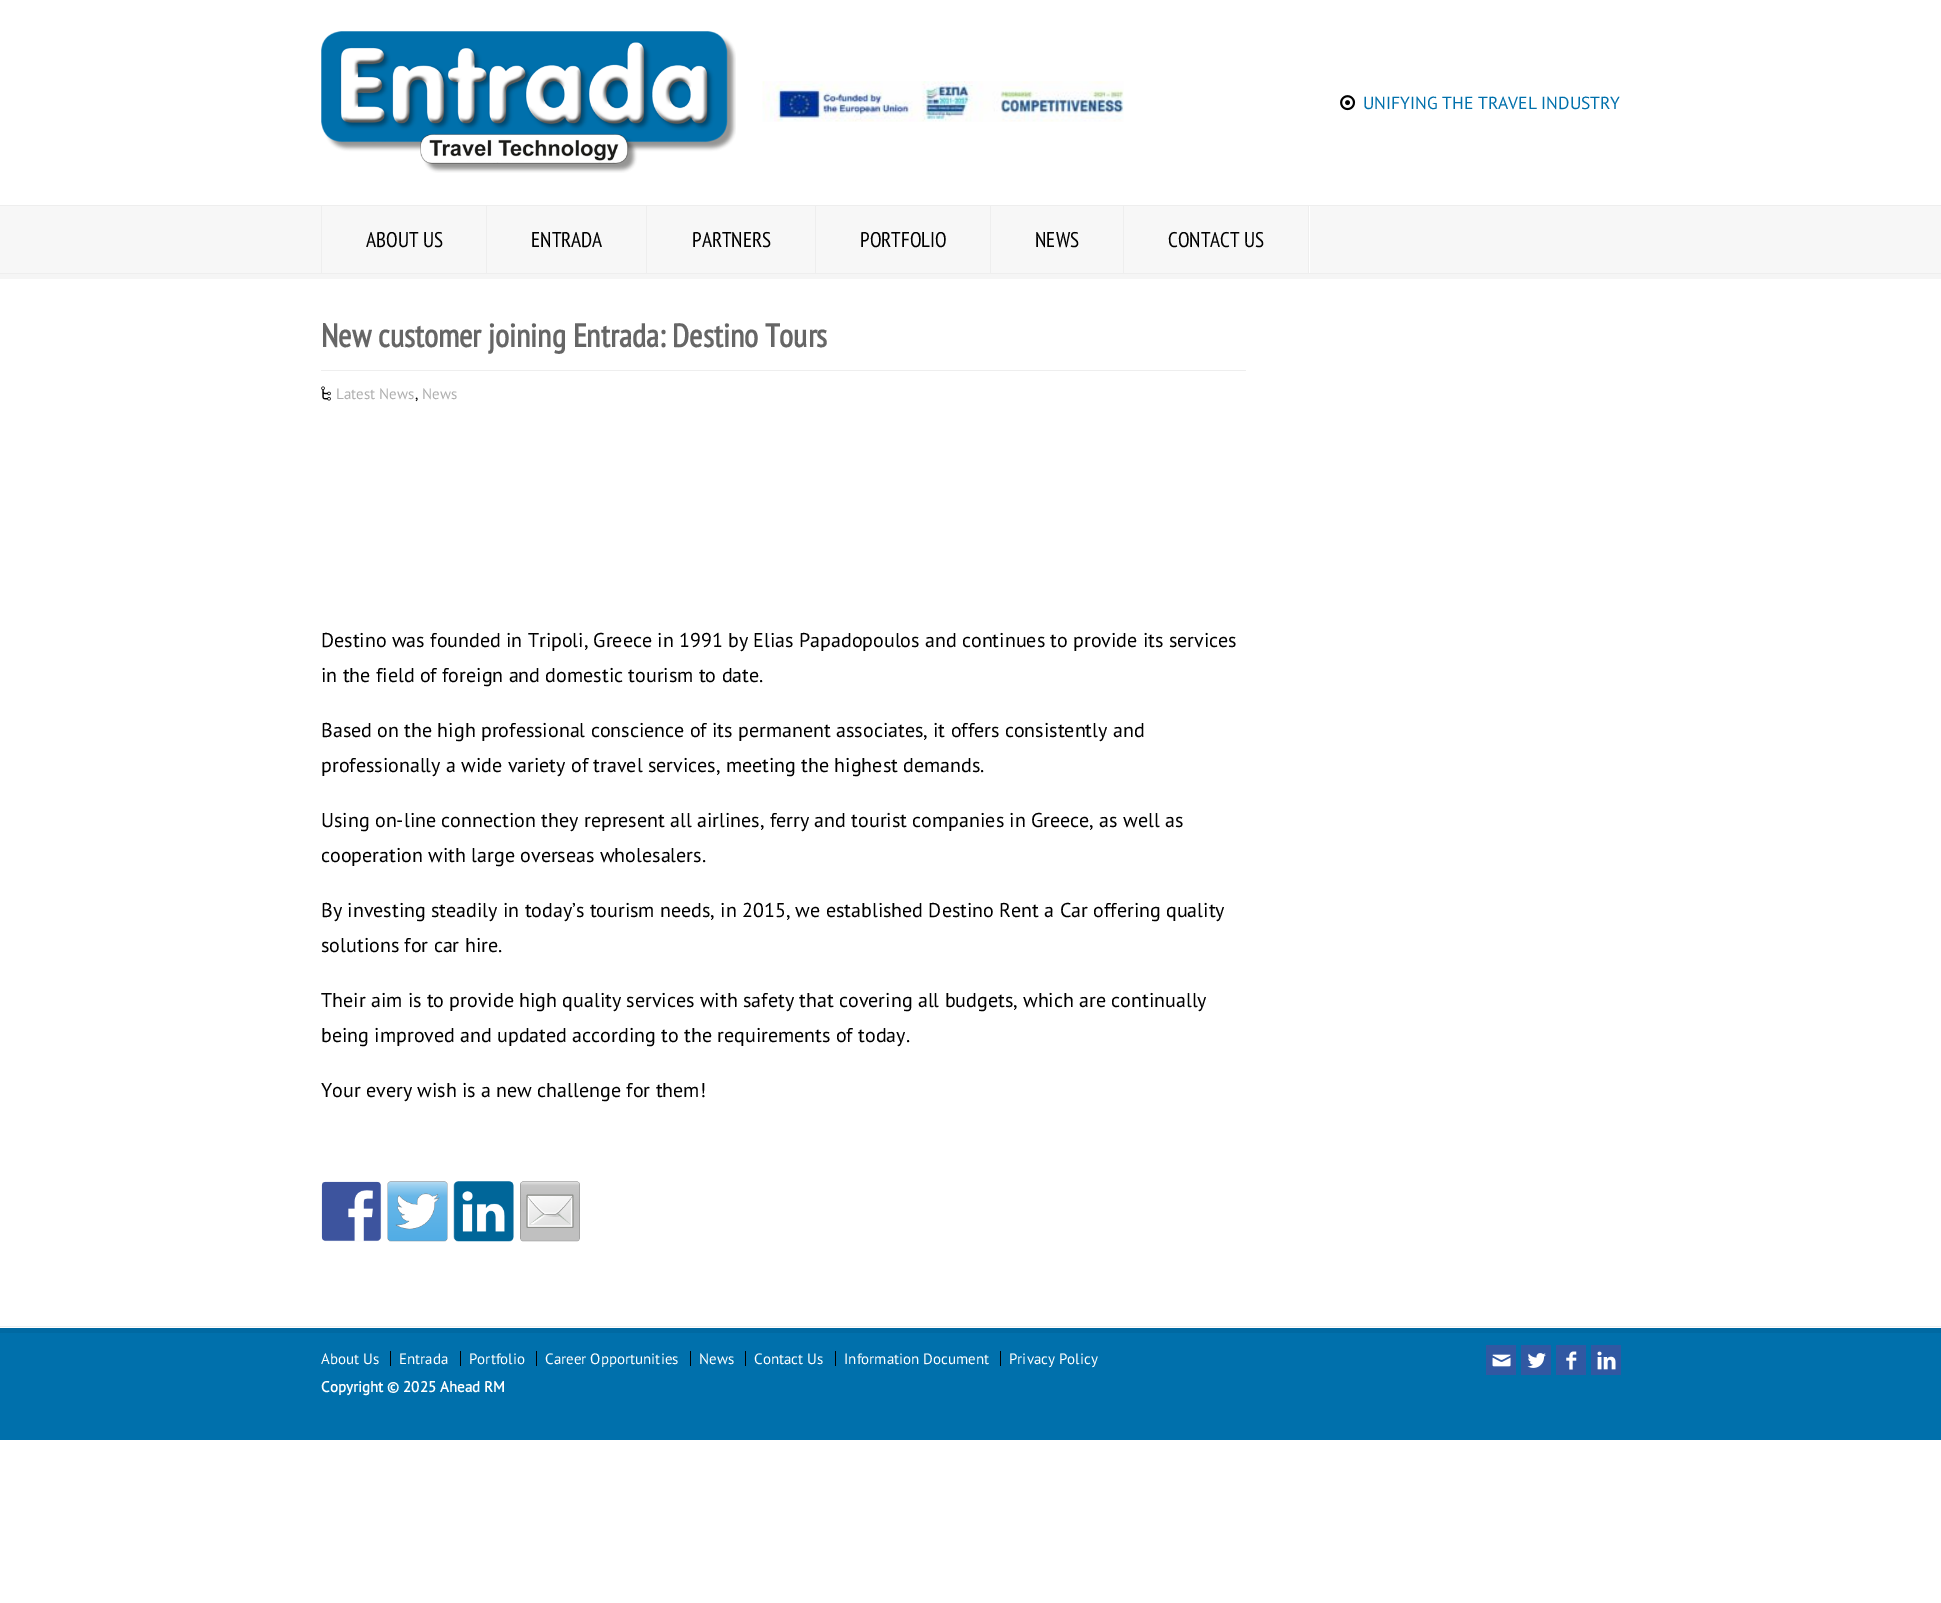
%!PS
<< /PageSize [1941 1603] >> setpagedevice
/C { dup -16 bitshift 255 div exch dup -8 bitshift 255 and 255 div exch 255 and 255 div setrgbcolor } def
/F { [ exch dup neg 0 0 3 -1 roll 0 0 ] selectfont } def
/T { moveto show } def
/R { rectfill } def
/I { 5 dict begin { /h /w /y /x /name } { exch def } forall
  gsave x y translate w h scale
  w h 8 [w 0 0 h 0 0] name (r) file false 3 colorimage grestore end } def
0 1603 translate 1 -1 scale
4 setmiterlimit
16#FFFFFF C
0 0 1941 1603 R
(1.rgb) 321 31 415 142 I
(2.rgb) 762 81 362 41 I
(3.rgb) 1340 95 16 16 I
/PTSans-Regular 17.5 F
16#0070AC C
(UNIFYING THE TRAVEL INDUSTRY) 1363 109 T
16#F5F5F5 C
0 274 1941 5 R
16#F7F7F7 C
0 206 1941 67 R
16#EEEEEE C
0 205 1941 1 R
0 273 1941 1 R
16#FFFFFF C
1309 206 1 67 R
16#EEEEEE C
486 206 1 67 R
321 206 1 67 R
/PTSansNarrow-Regular 21.25 F
16#000000 C
(ABOUT US) 366 247 T
16#EEEEEE C
646 206 1 67 R
16#000000 C
(ENTRADA) 531 247 T
16#EEEEEE C
815 206 1 67 R
16#000000 C
(PARTNERS) 692 247 T
16#EEEEEE C
990 206 1 67 R
16#000000 C
(PORTFOLIO) 860 247 T
16#EEEEEE C
1123 206 1 67 R
16#000000 C
(NEWS) 1035 247 T
16#EEEEEE C
1308 206 1 67 R
16#000000 C
(CONTACT US) 1168 247 T
/PTSansNarrow-Bold 32.5 F
16#666666 C
(New customer joining Entrada: Destino Tours) 321 347 T
16#EEEEEE C
321 370 925 1 R
(4.rgb) 321 386 10 15 I
/PTSans-Regular 15 F
16#AFAFAF C
(Latest News) 336 399 T
16#000000 C
(,) 415 399 T
16#AFAFAF C
(News) 422 399 T
/PTSans-Regular 20 F
16#000000 C
(Destino was founded in Tripoli, Greece in 1991 by Elias Papadopoulos and continues to provide its services) 321 647 T
(in the field of foreign and domestic tourism to date.) 321 682 T
(Based on the high professional conscience of its permanent associates, it offers consistently and) 321 737 T
(professionally a wide variety of travel services, meeting the highest demands.) 321 772 T
(Using on-line connection they represent all airlines, ferry and tourist companies in Greece, as well as) 321 827 T
(cooperation with large overseas wholesalers.) 321 862 T
(By investing steadily in today’s tourism needs, in 2015, we established Destino Rent a Car offering quality) 321 917 T
(solutions for car hire.) 321 952 T
(Their aim is to provide high quality services with safety that covering all budgets, which are continually) 321 1007 T
(being improved and updated according to the requirements of today.) 321 1042 T
(Your every wish is a new challenge for them!) 321 1097 T
(5.rgb) 321 1181 61 61 I
(6.rgb) 387 1181 61 61 I
(7.rgb) 453 1181 61 61 I
(8.rgb) 520 1181 60 61 I
16#F0F0F0 C
0 1326 1941 1 R
16#0070AC C
0 1333 1941 107 R
16#0069A2 C
0 1328 1941 5 R
/PTSans-Regular 15 F
16#FFFFFF C
(About Us) 321 1364 T
16#000000 C
390 1351 1 15 R
16#FFFFFF C
(Entrada) 399 1364 T
16#000000 C
460 1351 1 15 R
16#FFFFFF C
(Portfolio) 469 1364 T
16#000000 C
536 1351 1 15 R
16#FFFFFF C
(Career Opportunities) 545 1364 T
16#000000 C
690 1351 1 15 R
16#FFFFFF C
(News) 699 1364 T
16#000000 C
745 1351 1 15 R
16#FFFFFF C
(Contact Us) 754 1364 T
16#000000 C
835 1351 1 15 R
16#FFFFFF C
(Information Document) 844 1364 T
16#000000 C
1000 1351 1 15 R
16#FFFFFF C
(Privacy Policy) 1009 1364 T
/PTSans-Bold 15 F
(Copyright © 2025 Ahead RM) 321 1392 T
16#3158A2 C
1486 1345 30 30 R
(9.rgb) 1492 1354 19 13 I
1521 1345 30 30 R
(10.rgb) 1527 1353 19 15 I
1556 1345 30 30 R
(11.rgb) 1566 1351 11 19 I
1591 1345 30 30 R
(12.rgb) 1597 1351 19 19 I
showpage
